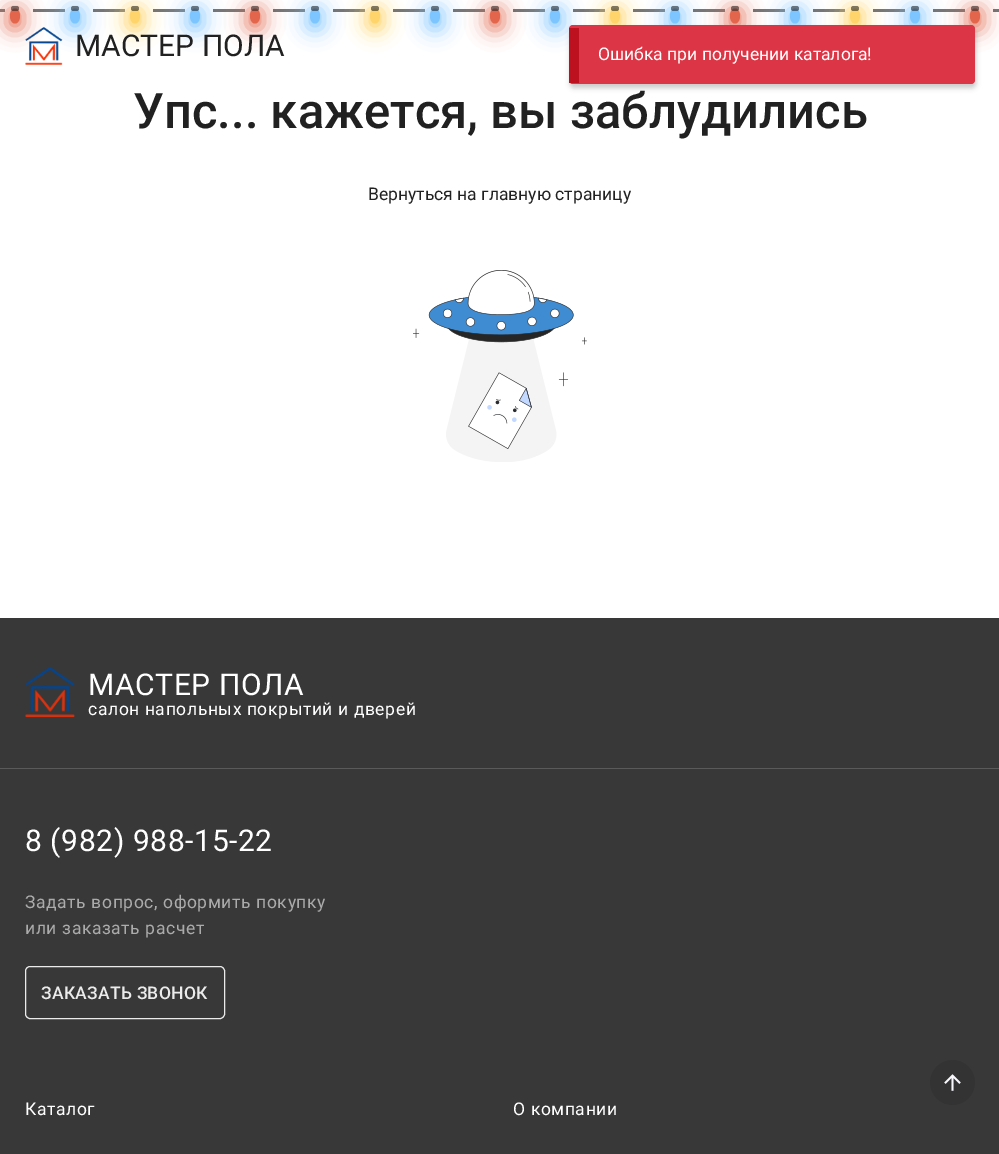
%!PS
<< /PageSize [999 1154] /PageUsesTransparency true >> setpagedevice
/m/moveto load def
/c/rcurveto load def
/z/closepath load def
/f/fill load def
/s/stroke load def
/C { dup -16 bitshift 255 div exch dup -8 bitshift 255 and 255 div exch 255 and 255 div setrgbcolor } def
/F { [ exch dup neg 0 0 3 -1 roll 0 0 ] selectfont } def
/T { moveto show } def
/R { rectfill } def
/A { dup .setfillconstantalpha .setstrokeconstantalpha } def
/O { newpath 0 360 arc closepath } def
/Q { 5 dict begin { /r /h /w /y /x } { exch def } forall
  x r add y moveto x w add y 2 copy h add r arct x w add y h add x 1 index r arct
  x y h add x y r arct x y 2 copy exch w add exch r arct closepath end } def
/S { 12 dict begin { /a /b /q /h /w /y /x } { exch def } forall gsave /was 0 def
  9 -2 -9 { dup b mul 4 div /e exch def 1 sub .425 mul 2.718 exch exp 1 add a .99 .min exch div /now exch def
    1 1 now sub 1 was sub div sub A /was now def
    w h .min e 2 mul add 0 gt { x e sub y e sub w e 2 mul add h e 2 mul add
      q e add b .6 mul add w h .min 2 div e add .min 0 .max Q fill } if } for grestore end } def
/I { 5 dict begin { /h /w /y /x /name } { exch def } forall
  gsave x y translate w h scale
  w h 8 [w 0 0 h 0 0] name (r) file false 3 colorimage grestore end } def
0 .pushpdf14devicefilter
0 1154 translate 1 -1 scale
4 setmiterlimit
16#FFFFFF C
0 0 999 1154 R
16#777777 C
0 9 5 3 R
(1.rgb) 25 27 38 38 I
16#E3664C C
6 8 18 22 9 10 .8 S
15 8.5 m 3 0 5 3.5 5 7.5 c 0 4 -2 7.5 -5 7.5 c -3 0 -5 -3.5 -5 -7.5 c 0 -4 2 -7.5 5 -7.5 c z f
0.58 A
16#222222 C
11 6 8 5 2.5 Q f
0.7 A
16#3D3D3D C
33 9 32 3 R
1 A
16#7CC5FF C
66 8 18 22 9 10 .85 S
75 8.5 m 3 0 5 3.5 5 7.5 c 0 4 -2 7.5 -5 7.5 c -3 0 -5 -3.5 -5 -7.5 c 0 -4 2 -7.5 5 -7.5 c z f
0.58 A
16#222222 C
71 6 8 5 2.5 Q f
0.7 A
16#3D3D3D C
93 9 32 3 R
1 A
16#FFD46A C
126 8 18 22 9 10 1 S
135 8.5 m 3 0 5 3.5 5 7.5 c 0 4 -2 7.5 -5 7.5 c -3 0 -5 -3.5 -5 -7.5 c 0 -4 2 -7.5 5 -7.5 c z f
0.58 A
16#222222 C
131 6 8 5 2.5 Q f
0.7 A
16#3D3D3D C
153 9 32 3 R
1 A
16#7CC5FF C
186 8 18 22 9 10 .85 S
195 8.5 m 3 0 5 3.5 5 7.5 c 0 4 -2 7.5 -5 7.5 c -3 0 -5 -3.5 -5 -7.5 c 0 -4 2 -7.5 5 -7.5 c z f
0.58 A
16#222222 C
191 6 8 5 2.5 Q f
0.7 A
16#3D3D3D C
213 9 32 3 R
1 A
16#E3664C C
246 8 18 22 9 10 .8 S
255 8.5 m 3 0 5 3.5 5 7.5 c 0 4 -2 7.5 -5 7.5 c -3 0 -5 -3.5 -5 -7.5 c 0 -4 2 -7.5 5 -7.5 c z f
0.58 A
16#222222 C
251 6 8 5 2.5 Q f
0.7 A
16#3D3D3D C
273 9 32 3 R
1 A
16#7CC5FF C
306 8 18 22 9 10 .85 S
315 8.5 m 3 0 5 3.5 5 7.5 c 0 4 -2 7.5 -5 7.5 c -3 0 -5 -3.5 -5 -7.5 c 0 -4 2 -7.5 5 -7.5 c z f
0.58 A
16#222222 C
311 6 8 5 2.5 Q f
0.7 A
16#3D3D3D C
333 9 32 3 R
1 A
16#FFD46A C
366 8 18 22 9 10 1 S
375 8.5 m 3 0 5 3.5 5 7.5 c 0 4 -2 7.5 -5 7.5 c -3 0 -5 -3.5 -5 -7.5 c 0 -4 2 -7.5 5 -7.5 c z f
0.58 A
16#222222 C
371 6 8 5 2.5 Q f
0.7 A
16#3D3D3D C
393 9 32 3 R
1 A
16#7CC5FF C
426 8 18 22 9 10 .85 S
435 8.5 m 3 0 5 3.5 5 7.5 c 0 4 -2 7.5 -5 7.5 c -3 0 -5 -3.5 -5 -7.5 c 0 -4 2 -7.5 5 -7.5 c z f
0.58 A
16#222222 C
431 6 8 5 2.5 Q f
0.7 A
16#3D3D3D C
453 9 32 3 R
1 A
16#E3664C C
486 8 18 22 9 10 .8 S
495 8.5 m 3 0 5 3.5 5 7.5 c 0 4 -2 7.5 -5 7.5 c -3 0 -5 -3.5 -5 -7.5 c 0 -4 2 -7.5 5 -7.5 c z f
0.58 A
16#222222 C
491 6 8 5 2.5 Q f
0.7 A
16#3D3D3D C
513 9 32 3 R
1 A
16#7CC5FF C
546 8 18 22 9 10 .85 S
555 8.5 m 3 0 5 3.5 5 7.5 c 0 4 -2 7.5 -5 7.5 c -3 0 -5 -3.5 -5 -7.5 c 0 -4 2 -7.5 5 -7.5 c z f
0.58 A
16#222222 C
551 6 8 5 2.5 Q f
0.7 A
16#3D3D3D C
573 9 32 3 R
1 A
16#FFD46A C
606 8 18 22 9 10 1 S
615 8.5 m 3 0 5 3.5 5 7.5 c 0 4 -2 7.5 -5 7.5 c -3 0 -5 -3.5 -5 -7.5 c 0 -4 2 -7.5 5 -7.5 c z f
0.58 A
16#222222 C
611 6 8 5 2.5 Q f
0.7 A
16#3D3D3D C
633 9 32 3 R
1 A
16#7CC5FF C
666 8 18 22 9 10 .85 S
675 8.5 m 3 0 5 3.5 5 7.5 c 0 4 -2 7.5 -5 7.5 c -3 0 -5 -3.5 -5 -7.5 c 0 -4 2 -7.5 5 -7.5 c z f
0.58 A
16#222222 C
671 6 8 5 2.5 Q f
0.7 A
16#3D3D3D C
693 9 32 3 R
1 A
16#E3664C C
726 8 18 22 9 10 .8 S
735 8.5 m 3 0 5 3.5 5 7.5 c 0 4 -2 7.5 -5 7.5 c -3 0 -5 -3.5 -5 -7.5 c 0 -4 2 -7.5 5 -7.5 c z f
0.58 A
16#222222 C
731 6 8 5 2.5 Q f
0.7 A
16#3D3D3D C
753 9 32 3 R
1 A
16#7CC5FF C
786 8 18 22 9 10 .85 S
795 8.5 m 3 0 5 3.5 5 7.5 c 0 4 -2 7.5 -5 7.5 c -3 0 -5 -3.5 -5 -7.5 c 0 -4 2 -7.5 5 -7.5 c z f
0.58 A
16#222222 C
791 6 8 5 2.5 Q f
0.7 A
16#3D3D3D C
813 9 32 3 R
1 A
16#FFD46A C
846 8 18 22 9 10 1 S
855 8.5 m 3 0 5 3.5 5 7.5 c 0 4 -2 7.5 -5 7.5 c -3 0 -5 -3.5 -5 -7.5 c 0 -4 2 -7.5 5 -7.5 c z f
0.58 A
16#222222 C
851 6 8 5 2.5 Q f
0.7 A
16#3D3D3D C
873 9 32 3 R
1 A
16#7CC5FF C
906 8 18 22 9 10 .85 S
915 8.5 m 3 0 5 3.5 5 7.5 c 0 4 -2 7.5 -5 7.5 c -3 0 -5 -3.5 -5 -7.5 c 0 -4 2 -7.5 5 -7.5 c z f
0.58 A
16#222222 C
911 6 8 5 2.5 Q f
0.7 A
16#3D3D3D C
933 9 32 3 R
1 A
16#E3664C C
966 8 18 22 9 10 .8 S
975 8.5 m 3 0 5 3.5 5 7.5 c 0 4 -2 7.5 -5 7.5 c -3 0 -5 -3.5 -5 -7.5 c 0 -4 2 -7.5 5 -7.5 c z f
0.58 A
16#222222 C
971 6 8 5 2.5 Q f
0.7 A
16#3D3D3D C
993 9 6 3 R
/Roboto-Regular 30 F
1 A
16#212121 C
(МАСТЕР ПОЛА) 75 56 T
/Roboto-Medium 49 F
(Упс... кажется, вы заблудились) 133 128 T
/Roboto-Regular 17.5 F
(Вернуться на главную страницу) 368 200 T
(2.rgb) 413 270 174 192 I
16#383839 C
0 618 999 536 R
16#333333 C
952.5 1082.5 22.5 O f
(3.rgb) 944 1074 17 17 I
(4.rgb) 25 667 50 51 I
/Roboto-Regular 30 F
16#FFFFFF C
88 695 m .6 0 (МАСТЕР ПОЛА) ashow
/Roboto-Regular 17.5 F
88 715 m .6 0 (салон напольных покрытий и дверей) ashow
16#5A5A5A C
0 768 999 1 R
/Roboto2-Regular 30 F
16#FFFFFF C
25 851 m .6 0 (8 \(982\) 988-15-22) ashow
/Roboto-Regular 17.5 F
16#ABABAB C
25 908 m .6 0 (Задать вопрос) ashow
/Roboto2-Regular 17.5 F
154 908 m .6 0 (,) ashow
/Roboto-Regular 17.5 F
163 908 m .6 0 (оформить покупку) ashow
25 934 m .6 0 (или заказать расчет) ashow
16#EBEBEB C
25.5 966.5 199 52 4.5 Q s
/Roboto-Medium 17.5 F
41 999 m .25 0 (ЗАКАЗАТЬ ЗВОНОК) ashow
/Roboto-Regular 17.5 F
16#FFFFFF C
25 1115 m .6 0 (Каталог) ashow
513 1115 m .6 0 (О компании) ashow
16#000000 C
570 29 406 59 4 2.5 .2 S
16#DC3545 C
569 25 406 59 4 Q f
16#BD1120 C
569 28 10 55 R
16#FFFFFF C
(Ошибка при получении каталога) 598 60 T
/Roboto2-Regular 17.5 F
(!) 867 60 T
.poppdf14devicefilter showpage
